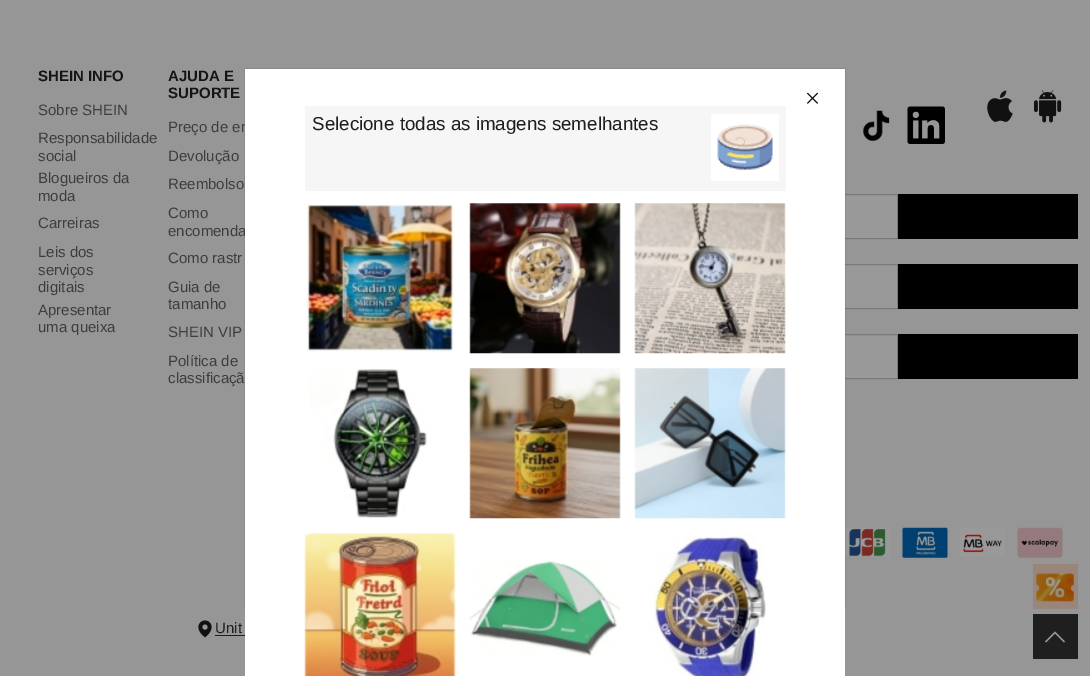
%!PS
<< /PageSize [1090 676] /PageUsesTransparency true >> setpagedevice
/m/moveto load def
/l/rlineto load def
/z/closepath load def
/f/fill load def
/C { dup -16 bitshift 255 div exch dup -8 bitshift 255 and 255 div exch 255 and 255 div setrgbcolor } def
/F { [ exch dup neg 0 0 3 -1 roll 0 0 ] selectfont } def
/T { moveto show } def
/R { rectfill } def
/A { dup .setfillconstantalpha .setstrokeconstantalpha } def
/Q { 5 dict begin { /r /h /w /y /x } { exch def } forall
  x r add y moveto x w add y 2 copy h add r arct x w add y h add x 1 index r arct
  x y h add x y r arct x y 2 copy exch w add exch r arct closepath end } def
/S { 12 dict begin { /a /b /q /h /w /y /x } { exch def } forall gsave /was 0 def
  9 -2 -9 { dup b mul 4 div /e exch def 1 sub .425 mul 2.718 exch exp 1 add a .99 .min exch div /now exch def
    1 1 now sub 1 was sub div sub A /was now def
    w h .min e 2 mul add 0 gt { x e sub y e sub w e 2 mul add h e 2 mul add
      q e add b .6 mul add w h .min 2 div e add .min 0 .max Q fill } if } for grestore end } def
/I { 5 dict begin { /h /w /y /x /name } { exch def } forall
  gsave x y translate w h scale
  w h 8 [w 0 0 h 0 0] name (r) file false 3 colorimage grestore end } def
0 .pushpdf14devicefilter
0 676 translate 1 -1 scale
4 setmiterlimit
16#969696 C
0 0 1090 676 R
/LiberationSans-Bold 15 F
16#141414 C
(SHEIN INFO) 38 81 T
/LiberationSans-Regular 15 F
16#3D3D3D C
(Sobre SHEIN) 38 115 T
(Responsabilidade) 38 143 T
(social) 38 161 T
(Blogueiros da) 38 183 T
(moda) 38 201 T
(Carreiras) 38 228 T
(Leis dos) 38 257 T
(serviços) 38 275 T
(digitais) 38 292 T
(Apresentar) 38 315 T
(uma queixa) 38 332 T
/LiberationSans-Bold 15 F
16#141414 C
(AJUDA E) 168 81 T
(SUPORTE) 168 98 T
/LiberationSans-Regular 15 F
16#3D3D3D C
(Preço de en) 168 132 T
(Devolução) 168 161 T
(Reembolso) 168 189 T
(Como) 168 218 T
(encomenda) 168 236 T
(Como rastr) 168 263 T
(Guia de) 168 292 T
(tamanho) 168 309 T
(SHEIN VIP) 168 337 T
(Política de) 168 366 T
(classificaçã) 168 383 T
(1.rgb) 863 110 27 31 I
(2.rgb) 907 106 38 38 I
(3.rgb) 987 90 26 32 I
(4.rgb) 1034 90 28 33 I
16#999999 C
845 195 52 43 R
16#7A7A7A C
558.5 194.5 339 44 rectstroke
16#000000 C
898 194 180 45 R
16#999999 C
845 265 52 43 R
16#7A7A7A C
658.5 264.5 239 44 rectstroke
16#000000 C
898 264 180 45 R
16#999999 C
845 335 52 43 R
16#7A7A7A C
658.5 334.5 239 44 rectstroke
16#000000 C
898 334 180 45 R
(5.rgb) 845 528 45 29 I
(6.rgb) 902 527 46 31 I
(7.rgb) 960 528 45 29 I
(8.rgb) 1017 527 46 31 I
(9.rgb) 198 620 14 18 I
16#1E1E1E C
(Unit) 215 633 T
215 635 30 1 R
16#998579 C
1033 564 45 45 R
(10.rgb) 1036 573 38 29 I
16#1F1F1F C
1033 614 45 45 R
16#999999 C
1065 641.5 m -10 -10 l -10 10 l 1 1 l 9 -9 l 9 9 l z f
16#000000 C
245 69 600 540 0 .5 .3 S
16#FFFFFF C
245 69 600 607 R
(11.rgb) 807 92 11 12 I
16#F6F6F6 C
305 106 481 85 R
/LiberationSans-Regular 18.75 F
16#1E1E1E C
(Selecione todas as imagens semelhantes) 312 130 T
16#FFFFFF C
711 114 68 67 R
(12.rgb) 717 124 56 46 I
(13.rgb) 305 203 150 150 I
(14.rgb) 469 203 152 151 I
(15.rgb) 634 203 152 151 I
(16.rgb) 309 369 118 149 I
(17.rgb) 469 368 152 151 I
(18.rgb) 634 368 152 151 I
(19.rgb) 304 533 152 143 I
(20.rgb) 469 560 151 96 I
(21.rgb) 653 533 113 143 I
.poppdf14devicefilter showpage
